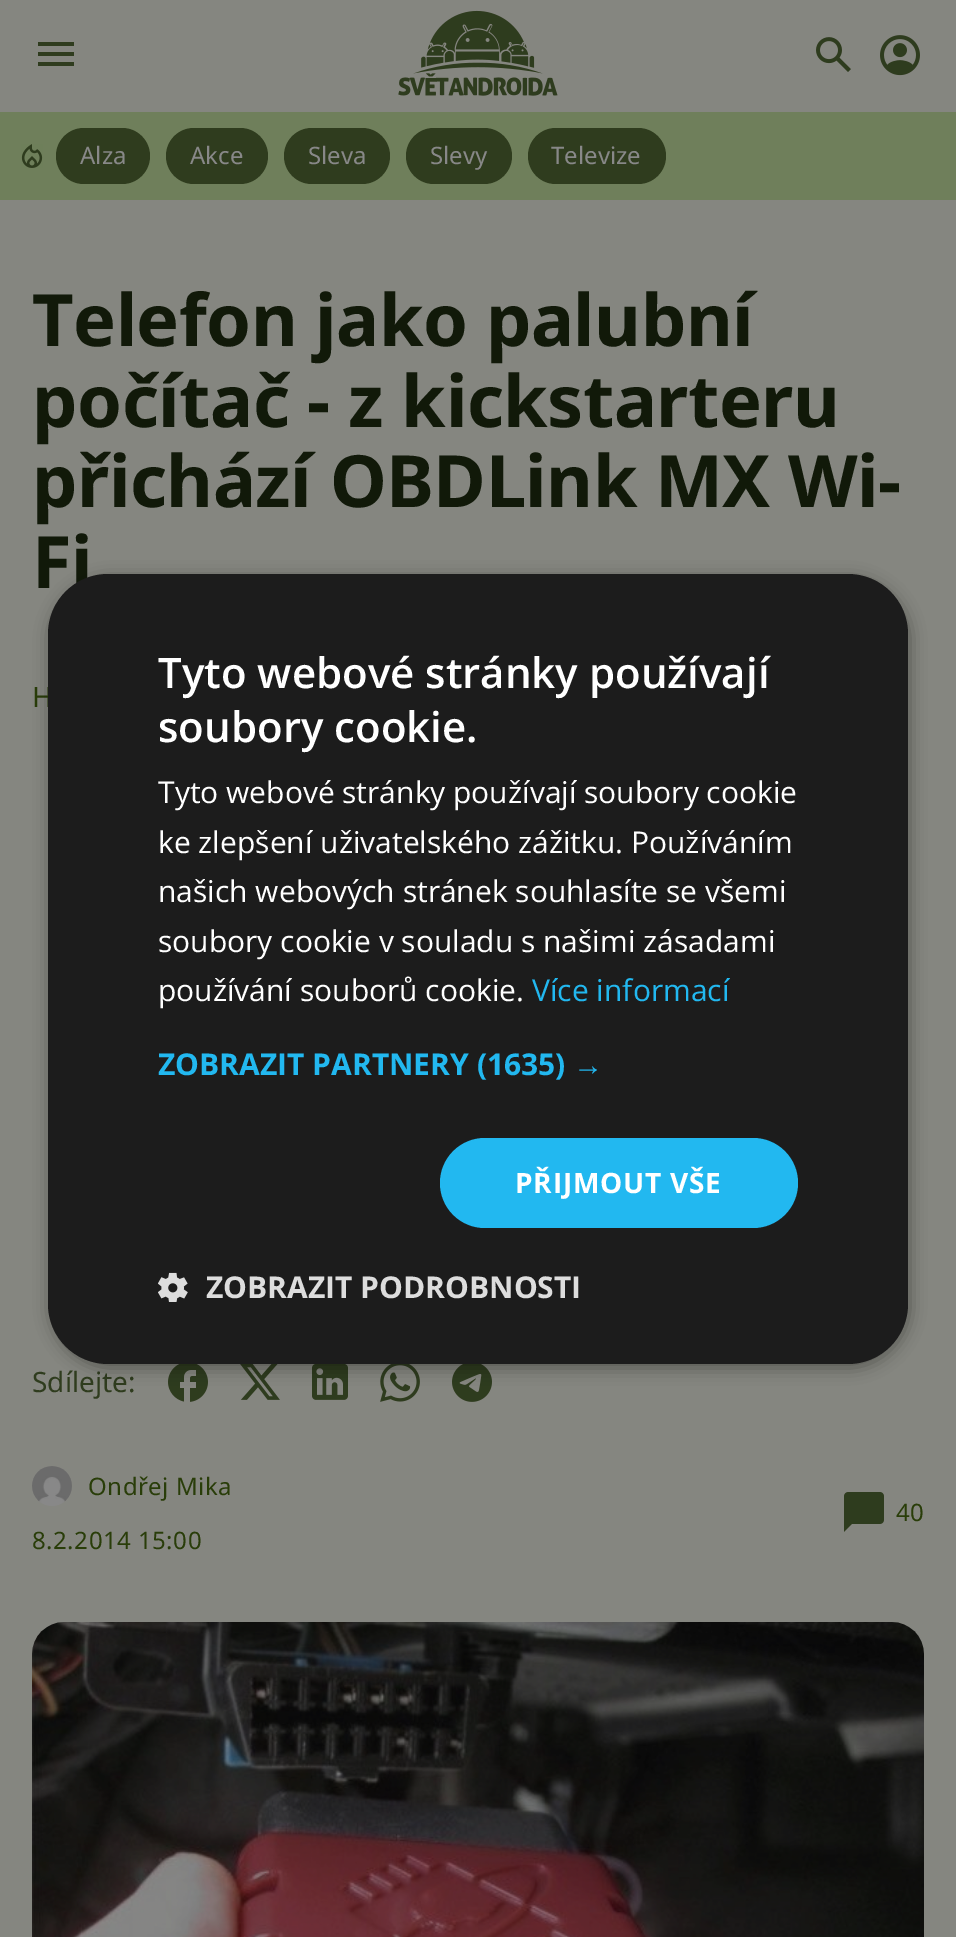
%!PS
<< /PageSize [956 1937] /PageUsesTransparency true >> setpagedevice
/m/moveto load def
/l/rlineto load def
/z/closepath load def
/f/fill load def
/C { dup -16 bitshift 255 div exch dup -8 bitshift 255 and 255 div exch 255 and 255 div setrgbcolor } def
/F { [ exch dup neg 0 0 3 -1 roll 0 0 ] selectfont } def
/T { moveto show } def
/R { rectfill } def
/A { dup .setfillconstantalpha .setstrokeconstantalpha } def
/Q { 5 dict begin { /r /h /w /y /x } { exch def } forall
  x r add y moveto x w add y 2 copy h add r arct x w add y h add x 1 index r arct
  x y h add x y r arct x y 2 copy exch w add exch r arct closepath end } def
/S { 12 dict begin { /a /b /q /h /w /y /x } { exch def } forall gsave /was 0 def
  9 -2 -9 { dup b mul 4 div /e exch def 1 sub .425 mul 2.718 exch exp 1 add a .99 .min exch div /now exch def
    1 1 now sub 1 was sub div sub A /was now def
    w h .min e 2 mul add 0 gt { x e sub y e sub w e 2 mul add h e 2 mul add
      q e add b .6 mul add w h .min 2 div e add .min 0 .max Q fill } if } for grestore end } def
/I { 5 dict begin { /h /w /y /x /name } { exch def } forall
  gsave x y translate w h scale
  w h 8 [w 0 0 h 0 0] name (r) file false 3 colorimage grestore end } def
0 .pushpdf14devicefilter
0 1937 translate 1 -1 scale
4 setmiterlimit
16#6F7F5B C
0 0 956 1937 R
16#858680 C
0 0 956 112 R
16#2F3C1E C
38 46 m 0 -4 l 36 0 l 0 4 l z 38 56 m 36 0 l 0 -4 l -36 0 l z 38 66 m 36 0 l 0 -4 l -36 0 l z eofill
(1.rgb) 398 10 160 86 I
(2.rgb) 816 37 35 35 I
(3.rgb) 880 35 40 41 I
(4.rgb) 21 144 22 24 I
56 128 94 56 28 Q f
/NotoSans-Regular 24 F
16#888888 C
(Alza) 80 164 T
16#2F3C1E C
166 128 102 56 28 Q f
16#888888 C
(Akce) 190 164 T
16#2F3C1E C
284 128 106 56 28 Q f
16#888888 C
(Sleva) 308 164 T
16#2F3C1E C
406 128 106 56 28 Q f
16#888888 C
(Slevy) 430 164 T
16#2F3C1E C
528 128 138 56 28 Q f
16#888888 C
(Televize) 551 164 T
16#858680 C
0 200 956 1737 R
/NotoSans-Bold 72 F
16#111909 C
32 346 m -.5 0 (Telefon jako palubní) ashow
32 427 m -.5 0 (počítač - z kickstarteru) ashow
32 507 m -.5 0 (přichází OBDLink MX Wi-) ashow
32 588 m -.5 0 (Fi) ashow
/NotoSans-Regular 28 F
16#293D09 C
32 707 m .5 0 (H) ashow
16#2F3C1E C
(Sdílejte:) 32 1392 T
(5.rgb) 168 1364 40 38 I
(6.rgb) 240 1364 40 36 I
(7.rgb) 312 1364 36 36 I
(8.rgb) 380 1364 40 38 I
(9.rgb) 452 1364 40 38 I
(10.rgb) 32 1466 40 40 I
/NotoSans-Regular 24 F
16#293D09 C
88 1495 m .5 0 (Ondřej Mika) ashow
32 1549 m .5 0 (8.2.2014 15:00) ashow
(11.rgb) 844 1492 40 40 I
896 1521 m .5 0 (40) ashow
(12.rgb) 32 1622 892 315 I
16#000000 C
50 578 860 790 60 8 .35 S
16#1C1C1C C
48 574 860 790 60 Q f
/OpenSans-SemiBold 42 F
16#FFFFFF C
(Tyto webové stránky používají) 158 688 T
(soubory cookie.) 158 742 T
/OpenSans-Regular 30 F
(Tyto webové stránky používají soubory cookie) 158 803 T
(ke zlepšení uživatelského zážitku. Používáním) 158 853 T
(našich webových stránek souhlasíte se všemi) 158 902 T
(soubory cookie v souladu s našimi zásadami) 158 952 T
(používání souborů cookie.) 158 1001 T
16#22B8F0 C
(Více informací) 532 1001 T
/OpenSans-Bold 30 F
(ZOBRAZIT PARTNERY \(1635\)) 158 1075 T
/LiberationSans-Bold 30 F
(→) 573 1075 T
440 1138 358 90 45 Q f
/OpenSans-Bold 28 F
16#FFFFFF C
515 1193 m .75 0 (PŘIJMOUT VŠE) ashow
(13.rgb) 158 1272 30 30 I
/OpenSans-Bold 30 F
16#DDDDDD C
(ZOBRAZIT PODROBNOSTI) 206 1298 T
.poppdf14devicefilter showpage
